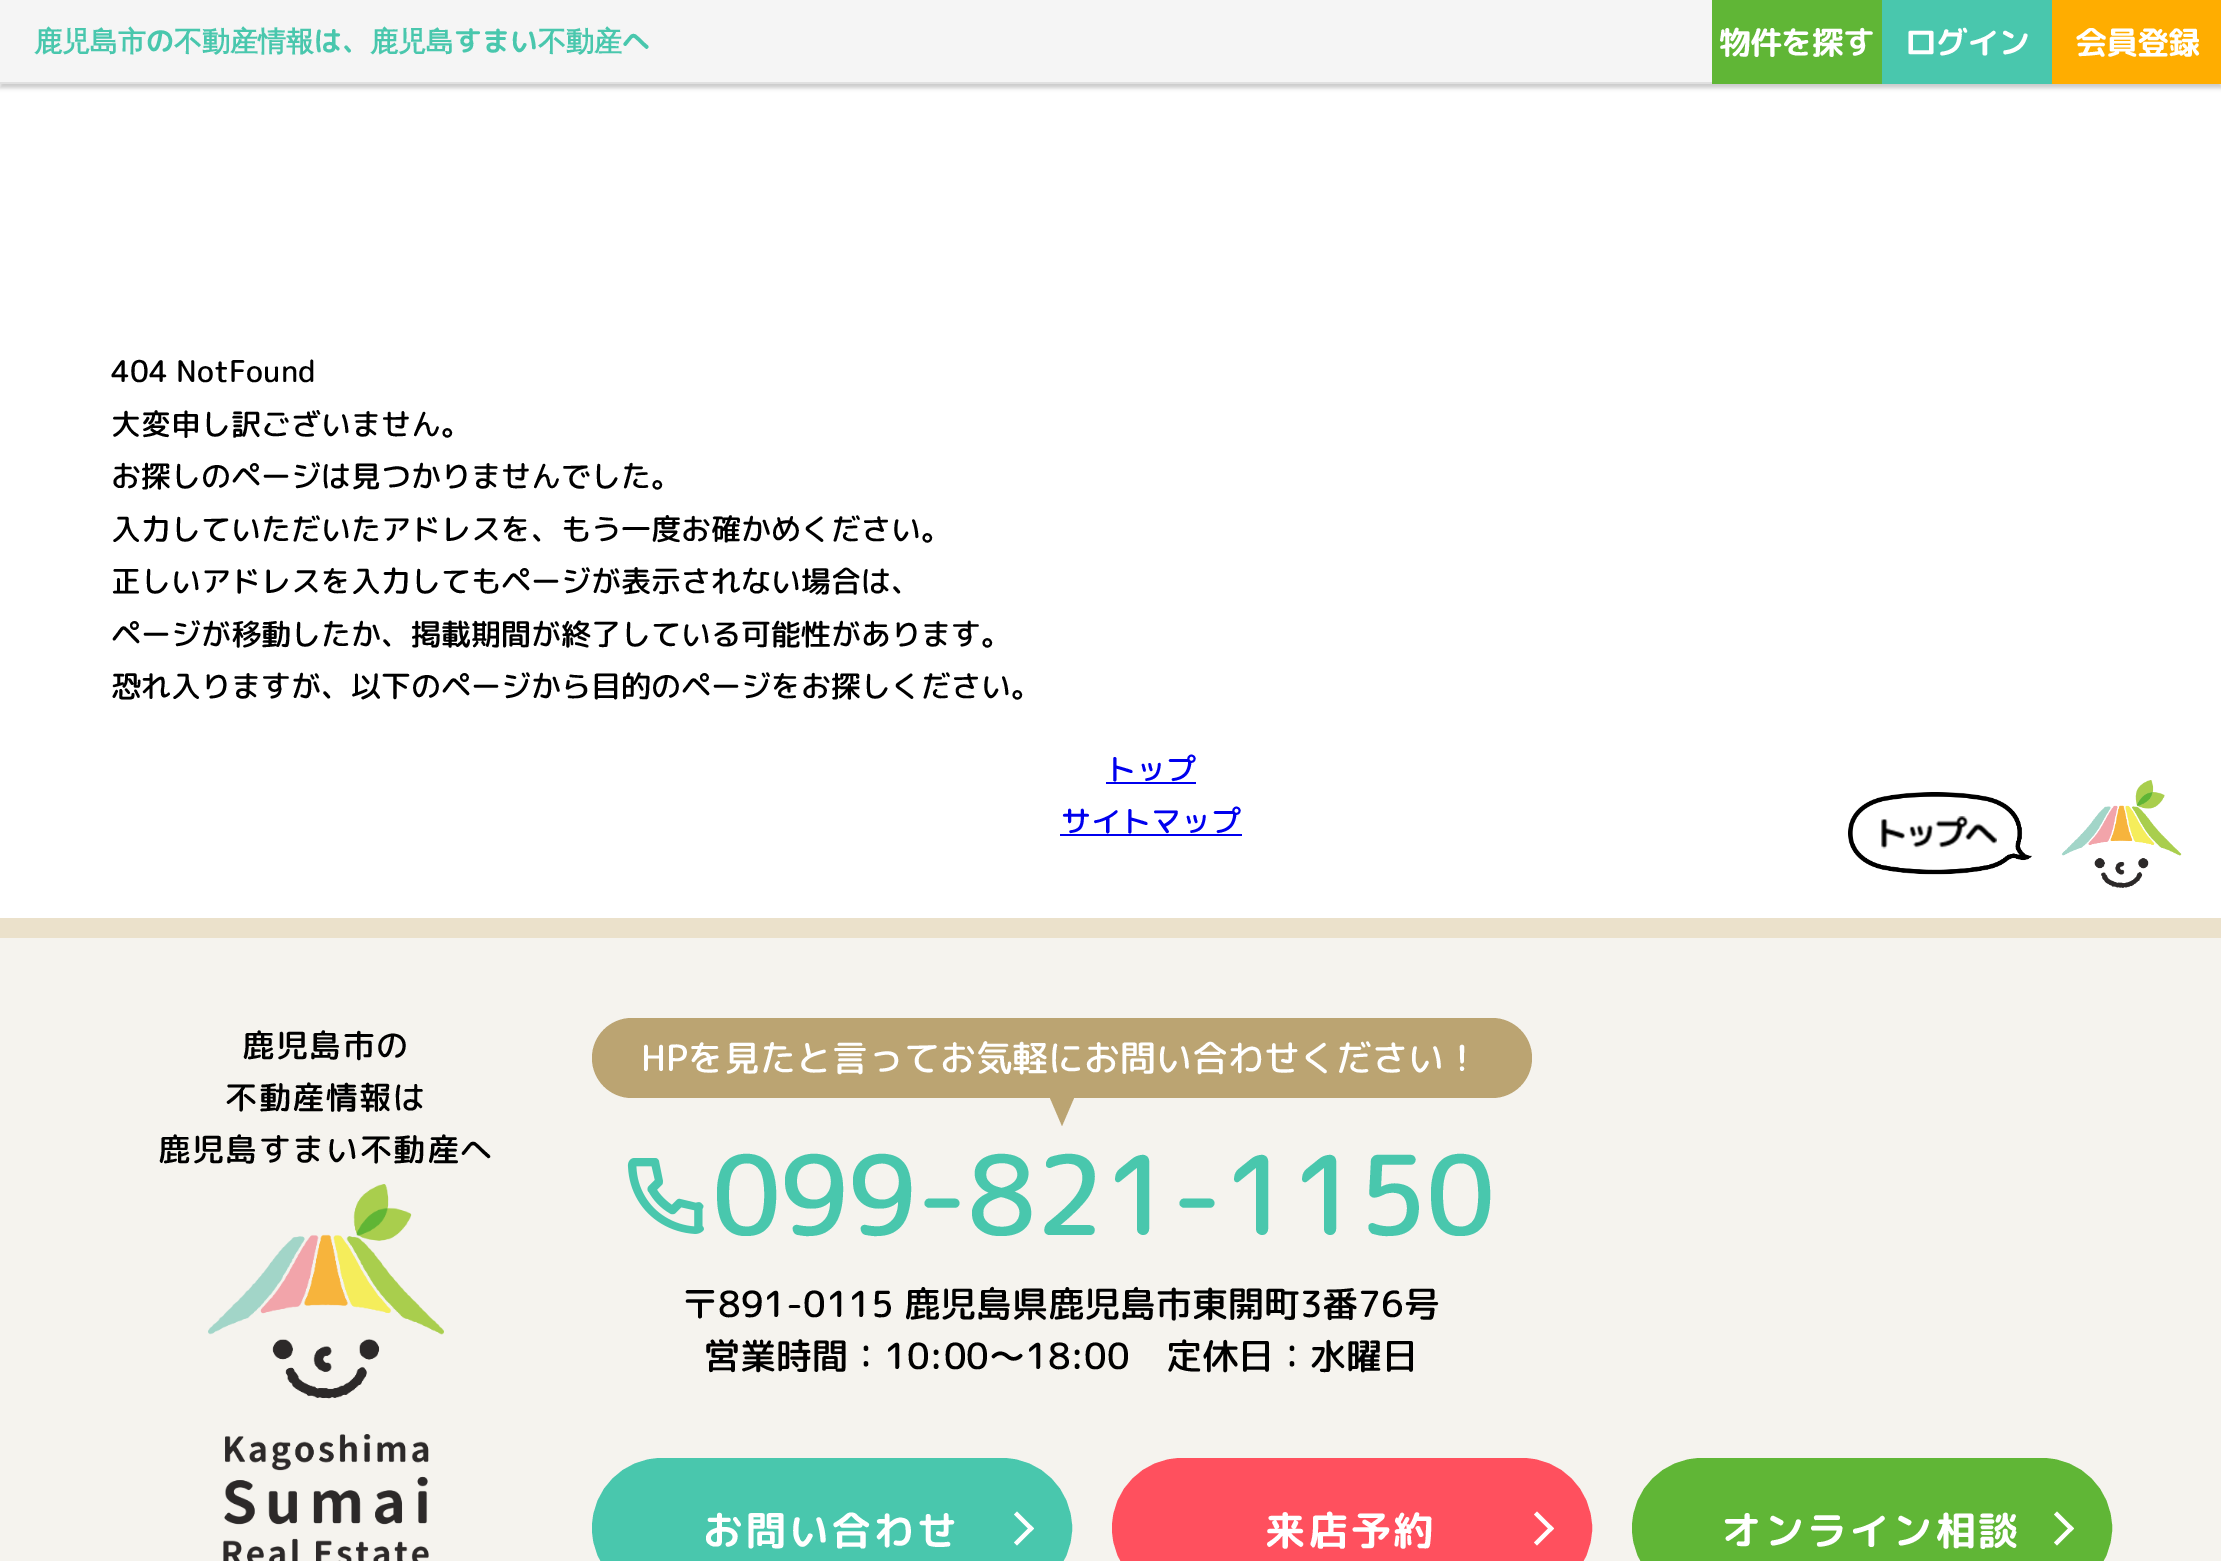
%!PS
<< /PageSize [2221 1561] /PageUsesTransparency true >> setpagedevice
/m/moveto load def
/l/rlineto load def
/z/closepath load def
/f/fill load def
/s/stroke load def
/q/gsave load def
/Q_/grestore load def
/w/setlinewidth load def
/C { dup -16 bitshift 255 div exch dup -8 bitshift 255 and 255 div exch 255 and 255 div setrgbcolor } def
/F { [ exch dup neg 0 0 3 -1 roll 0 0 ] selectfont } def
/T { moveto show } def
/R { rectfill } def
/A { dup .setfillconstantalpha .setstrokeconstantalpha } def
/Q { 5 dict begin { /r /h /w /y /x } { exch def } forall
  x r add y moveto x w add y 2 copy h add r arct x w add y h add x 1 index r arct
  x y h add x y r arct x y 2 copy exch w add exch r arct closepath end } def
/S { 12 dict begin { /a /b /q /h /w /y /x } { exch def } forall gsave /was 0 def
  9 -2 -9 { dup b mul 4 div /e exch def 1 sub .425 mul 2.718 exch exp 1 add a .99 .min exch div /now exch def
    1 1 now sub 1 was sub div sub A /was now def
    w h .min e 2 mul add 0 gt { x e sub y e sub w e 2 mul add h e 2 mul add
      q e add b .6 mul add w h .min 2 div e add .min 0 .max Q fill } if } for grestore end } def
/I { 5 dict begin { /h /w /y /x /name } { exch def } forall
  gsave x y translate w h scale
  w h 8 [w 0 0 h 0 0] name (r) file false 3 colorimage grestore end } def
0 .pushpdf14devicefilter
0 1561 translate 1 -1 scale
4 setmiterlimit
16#FFFFFF C
0 0 2221 1561 R
16#000000 C
0 4 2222 84 0 2 .2 S
16#F5F5F5 C
0 0 1712 82 R
16#E0E0E0 C
0 82 1712 2 R
/WenQuanYiZenHei-Bold 28 F
16#49C7AD C
(鹿児島市) 34 51 T
/RoundedMplus1cBold-Bold 28 F
(の) 146 51 T
/WenQuanYiZenHei-Bold 28 F
(不動産情報) 174 51 T
/RoundedMplus1cBold-Bold 28 F
(は、) 314 51 T
/WenQuanYiZenHei-Bold 28 F
(鹿児島) 370 51 T
/RoundedMplus1cBold-Bold 28 F
(すまい) 454 51 T
/WenQuanYiZenHei-Bold 28 F
(不動産) 538 51 T
/RoundedMplus1cBold-Bold 28 F
(へ) 622 51 T
16#60B636 C
1712 0 170 84 R
/RoundedMplus1cBold-Bold 32 F
16#FFFFFF C
1719 54 m -1 0 (物件を探す) ashow
16#49C7AD C
1882 0 170 84 R
16#FFFFFF C
1905 54 m -1 0 (ログイン) ashow
16#FFAD00 C
2052 0 169 84 R
16#FFFFFF C
2075 54 m -1 0 (会員登録) ashow
/RoundedMplus1c-Medium 30 F
16#000000 C
(404 NotFound) 111 382 T
(大変申し訳ございません。) 111 435 T
(お探しのページは見つかりませんでした。) 111 487 T
(入力していただいたアドレスを、もう一度お確かめください。) 111 540 T
(正しいアドレスを入力してもページが表示されない場合は、) 111 592 T
(ページが移動したか、掲載期間が終了している可能性があります。) 111 645 T
(恐れ入りますが、以下のページから目的のページをお探しください。) 111 697 T
16#0000EE C
(トップ) 1106 780 T
1106 782 90 2 R
(サイトマップ) 1061 832 T
1060 834 182 2 R
16#F5F3EE C
0 938 2221 623 R
16#EBE1CB C
0 918 2221 20 R
(1.rgb) 1848 780 334 108 I
/RoundedMplus1c-Medium 32 F
16#000000 C
242 1057 m 1.6 0 (鹿児島市の) ashow
225 1109 m 1.6 0 (不動産情報は) ashow
158 1161 m 1.6 0 (鹿児島すまい不動産へ) ashow
(2.rgb) 208 1184 236 377 I
16#BBA472 C
592 1018 940 80 40 Q f
/RoundedMplus1c-Medium 36 F
16#FFFFFF C
(HPを見たと言ってお気軽にお問い合わせください！) 641 1071 T
16#BBA472 C
1050 1098 m 24 0 l -12 28 l z f
(3.rgb) 627 1158 77 76 I
/RoundedMplus1c-Medium 110 F
16#49C7AD C
712 1235 m -1.25 0 (099-821-1150) ashow
/RoundedMplus1c-Medium 36 F
16#000000 C
(〒891-0115 鹿児島県鹿児島市東開町3番76号) 682 1317 T
(営業時間：10:00〜18:00　定休日：水曜日) 704 1369 T
16#49C7AD C
595 1461 474 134 67 Q q f Q_
6 w
s
/RoundedMplus1cBold-Bold 40 F
16#FFFFFF C
703 1545 m 2.75 0 (お問い合わせ) ashow
1017 1511.5 m 17 17 l -3 3 l -17 -17 l z f
1031 1525.5 m 3 3 l -17 17 l -3 -3 l z f
16#FF505E C
1115 1461 474 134 67 Q q f Q_
s
16#FFFFFF C
1265 1545 m 2.75 0 (来店予約) ashow
1537 1511.5 m 17 17 l -3 3 l -17 -17 l z f
1551 1525.5 m 3 3 l -17 17 l -3 -3 l z f
16#60B636 C
1635 1461 474 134 67 Q q f Q_
s
16#FFFFFF C
1721 1545 m 2.75 0 (オンライン相談) ashow
2057 1511.5 m 17 17 l -3 3 l -17 -17 l z f
2071 1525.5 m 3 3 l -17 17 l -3 -3 l z f
.poppdf14devicefilter showpage
